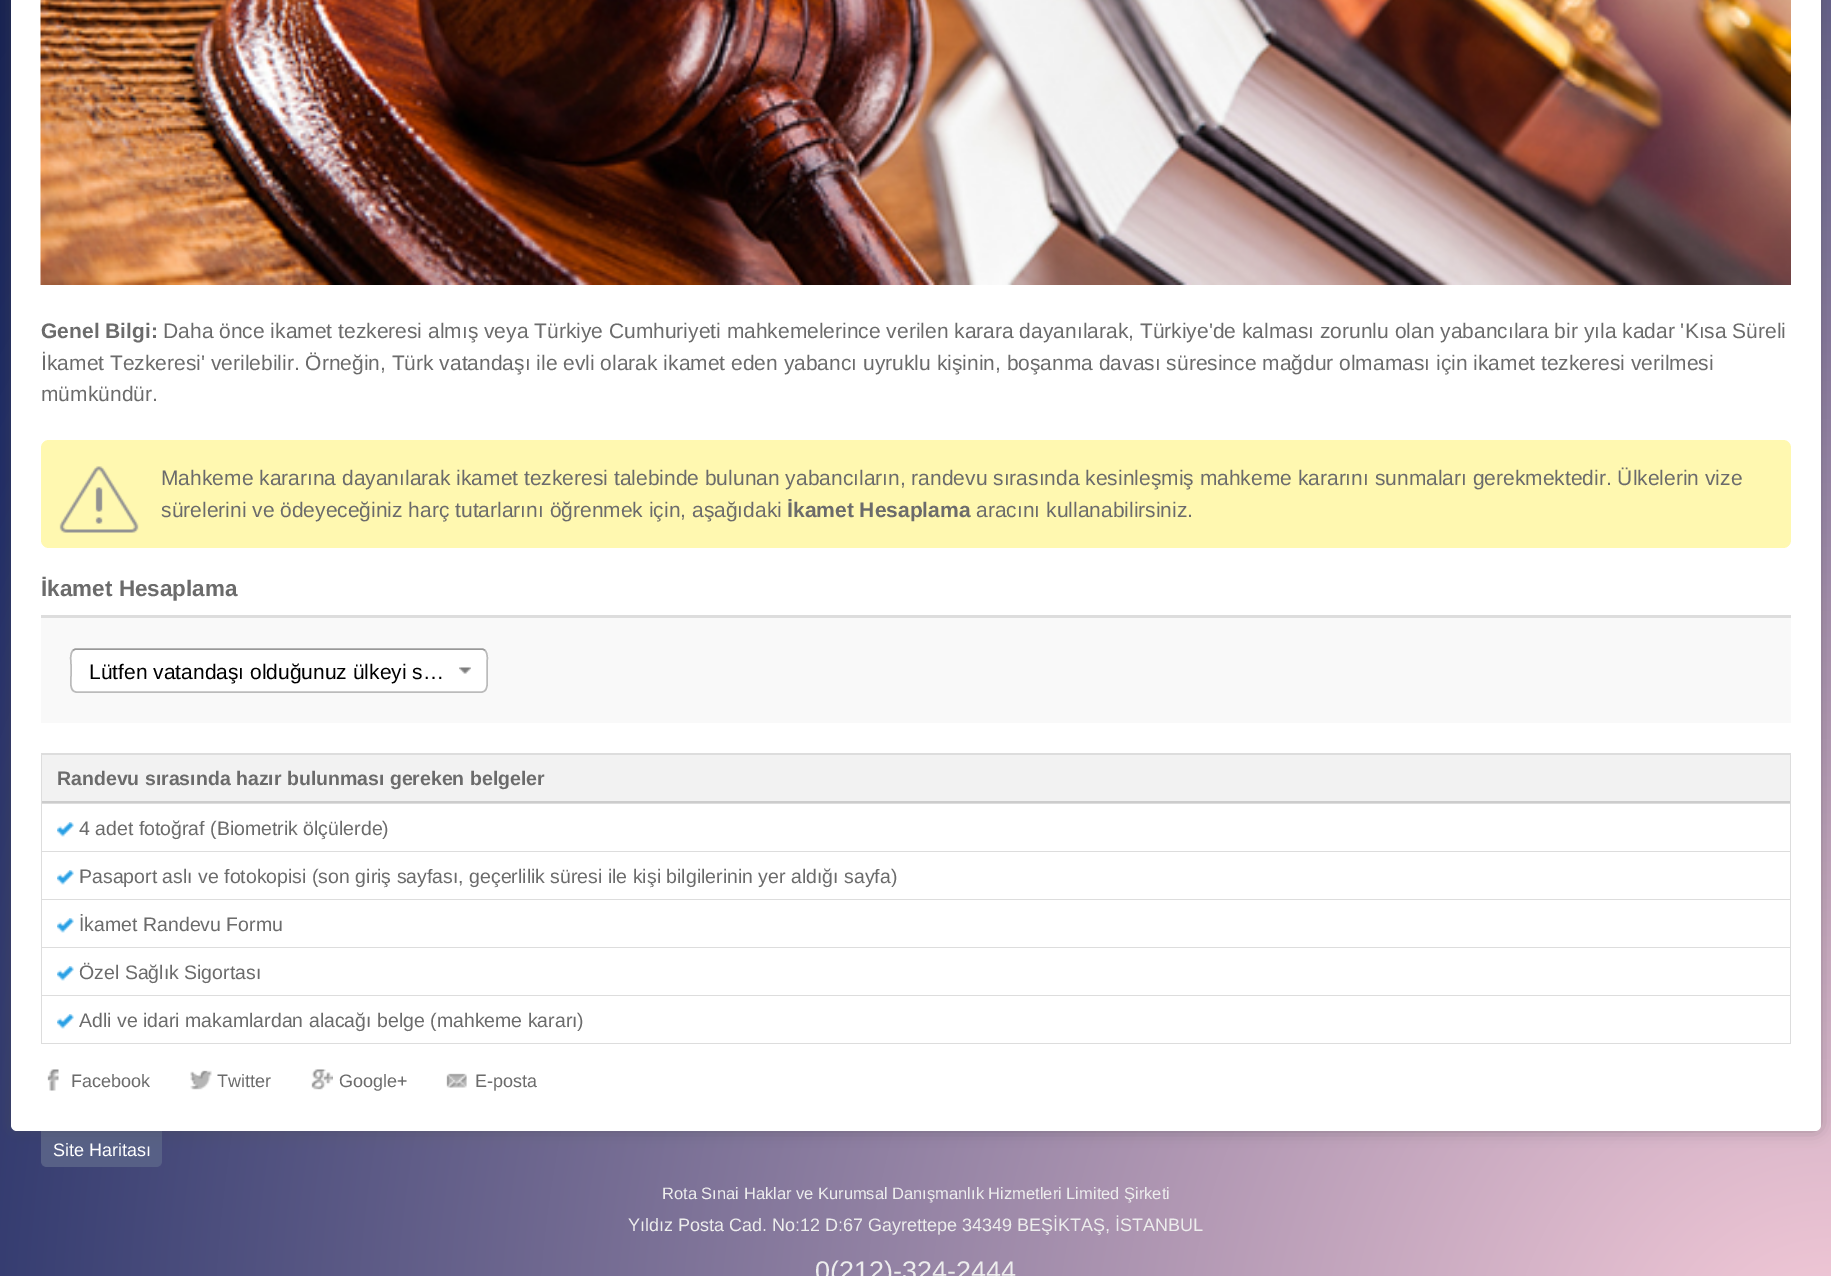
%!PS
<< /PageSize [1831 1276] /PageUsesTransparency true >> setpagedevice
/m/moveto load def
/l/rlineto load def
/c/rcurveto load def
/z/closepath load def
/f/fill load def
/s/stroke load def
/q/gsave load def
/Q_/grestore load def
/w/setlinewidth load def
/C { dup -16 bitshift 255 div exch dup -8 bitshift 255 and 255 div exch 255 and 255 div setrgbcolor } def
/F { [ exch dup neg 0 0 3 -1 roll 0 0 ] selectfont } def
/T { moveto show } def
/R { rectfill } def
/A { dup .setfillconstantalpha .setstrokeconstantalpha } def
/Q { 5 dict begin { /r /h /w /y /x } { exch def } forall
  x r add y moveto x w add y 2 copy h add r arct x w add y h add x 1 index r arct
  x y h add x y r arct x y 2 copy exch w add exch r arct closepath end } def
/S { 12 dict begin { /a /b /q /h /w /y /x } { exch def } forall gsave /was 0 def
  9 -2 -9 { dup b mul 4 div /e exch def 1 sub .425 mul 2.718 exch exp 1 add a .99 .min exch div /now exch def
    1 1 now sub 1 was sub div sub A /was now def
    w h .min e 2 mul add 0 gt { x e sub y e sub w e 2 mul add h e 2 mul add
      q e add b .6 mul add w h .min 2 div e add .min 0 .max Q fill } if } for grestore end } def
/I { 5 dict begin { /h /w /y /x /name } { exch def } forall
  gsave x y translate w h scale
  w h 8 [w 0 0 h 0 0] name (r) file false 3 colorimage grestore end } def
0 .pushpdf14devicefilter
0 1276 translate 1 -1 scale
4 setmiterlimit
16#FFFFFF C
0 0 1831 1276 R
q 0 0 m 1831 0 l 0 1276 l -1831 0 l z clip newpath 1832 1379 translate 2590 2560 scale
<< /ShadingType 3 /ColorSpace /DeviceRGB /Coords [0 0 0 0 0 1] /Extend [true true] /Function << /FunctionType 3 /Domain [0 1] /Functions [<< /FunctionType 2 /Domain [0 1] /C0 [.973 .804 .855] /C1 [.114 .169 .392] /N 1 >> << /FunctionType 2 /Domain [0 1] /C0 [.114 .169 .392] /C1 [.055 .082 .227] /N 1 >>] /Bounds [.8] /Encode [0 1 0 1] >> >> shfill Q_
0.99 A
16#576086 C
41 1131 m 121 0 l 0 30 l 0 3.5 -2.5 6 -6 6 c -109 0 l -3.5 0 -6 -2.5 -6 -6 c z f
1 A
16#4C4C4C C
11 -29 1810 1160 6 7.5 .4 S
16#FFFFFF C
11 -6 1810 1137 6 Q f
(1.rgb) 40 0 1751 285 I
/Arimo-Bold 21 F
16#6B6B6B C
(Genel Bilgi:) 41 338 T
/Arimo-Regular 21 F
(Daha önce ikamet tezkeresi almış veya Türkiye Cumhuriyeti mahkemelerince verilen karara dayanılarak, Türkiye'de kalması zorunlu olan yabancılara bir yıla kadar 'Kısa Süreli) 163 338 T
(İkamet Tezkeresi' verilebilir. Örneğin, Türk vatandaşı ile evli olarak ikamet eden yabancı uyruklu kişinin, boşanma davası süresince mağdur olmaması için ikamet tezkeresi verilmesi) 41 370 T
(mümkündür.) 41 401 T
16#FFF8B0 C
41 440 1750 108 8 Q f
(2.rgb) 59 466 80 67 I
16#6B6B6B C
(Mahkeme kararına dayanılarak ikamet tezkeresi talebinde bulunan yabancıların, randevu sırasında kesinleşmiş mahkeme kararını sunmaları gerekmektedir. Ülkelerin vize) 161 485 T
(sürelerini ve ödeyeceğiniz harç tutarlarını öğrenmek için, aşağıdaki) 161 517 T
/Arimo-Bold 21 F
(İkamet Hesaplama) 787 517 T
/Arimo-Regular 21 F
(aracını kullanabilirsiniz.) 976 517 T
16#DDDDDD C
41 615 1750 3 R
/Arimo-Bold 22.5 F
16#6B6B6B C
(İkamet Hesaplama) 41 596 T
16#F9F9F9 C
41 618 1750 105 R
16#FFFFFF C
71 648 417 45 6 Q f
16#999999 C
1.5 w
73 650.5 m 1 -1 2 -1.5 3.5 -1.5 c 405 0 l 1.5 0 2.5 .5 3.5 1.5 c s
16#BBBBBB C
485 650.5 m 3.5 3 2 11 2 14.5 c 0 11 l 0 4 2 16 -5.5 16 c -405 0 l -7.5 0 -5.5 -12 -5.5 -16 c 0 -11 l 0 -3.5 -1.5 -11.5 2 -14.5 c s
/Arimo-Regular 21 F
16#000000 C
(Lütfen vatandaşı olduğunuz ülkeyi s…) 89 679 T
(3.rgb) 459 667 12 7 I
16#DDDDDD C
41 753 1750 291 R
16#F2F2F2 C
42 755 1748 46 R
16#CCCCCC C
42 801 1748 2 R
/Arimo-Bold 19.5 F
16#6B6B6B C
(Randevu sırasında hazır bulunması gereken belgeler) 57 785 T
16#FFFFFF C
42 804 1748 47 R
(4.rgb) 57 822 17 15 I
/Arimo-Regular 19.5 F
16#6B6B6B C
(4 adet fotoğraf \(Biometrik ölçülerde\)) 79 835 T
16#FFFFFF C
42 852 1748 47 R
(4.rgb) 57 870 17 15 I
16#6B6B6B C
(Pasaport aslı ve fotokopisi \(son giriş sayfası, geçerlilik süresi ile kişi bilgilerinin yer aldığı sayfa\)) 79 883 T
16#FFFFFF C
42 900 1748 47 R
(4.rgb) 57 918 17 15 I
16#6B6B6B C
(İkamet Randevu Formu) 79 931 T
16#FFFFFF C
42 948 1748 47 R
(4.rgb) 57 966 17 15 I
16#6B6B6B C
(Özel Sağlık Sigortası) 79 979 T
16#FFFFFF C
42 996 1748 47 R
(4.rgb) 57 1014 17 15 I
16#6B6B6B C
(Adli ve idari makamlardan alacağı belge \(mahkeme kararı\)) 79 1027 T
(5.rgb) 47 1069 12 22 I
/Arimo-Regular 18 F
(Facebook) 71 1087 T
(6.rgb) 190 1070 22 20 I
(Twitter) 217 1087 T
(7.rgb) 311 1069 22 21 I
(Google+) 339 1087 T
(8.rgb) 446 1073 21 15 I
(E-posta) 475 1087 T
16#FFFFFF C
(Site Haritası) 53 1156 T
/Arimo-Regular 16.5 F
16#EDEDED C
(Rota Sınai Haklar ve Kurumsal Danışmanlık Hizmetleri Limited Şirketi) 662 1199 T
/Arimo-Regular 18 F
(Yıldız Posta Cad. No:12 D:67 Gayrettepe 34349 BEŞİKTAŞ, İSTANBUL) 628 1231 T
/Arimo-Regular 27 F
(0\(212\)-324-2444) 815 1280 T
.poppdf14devicefilter showpage
